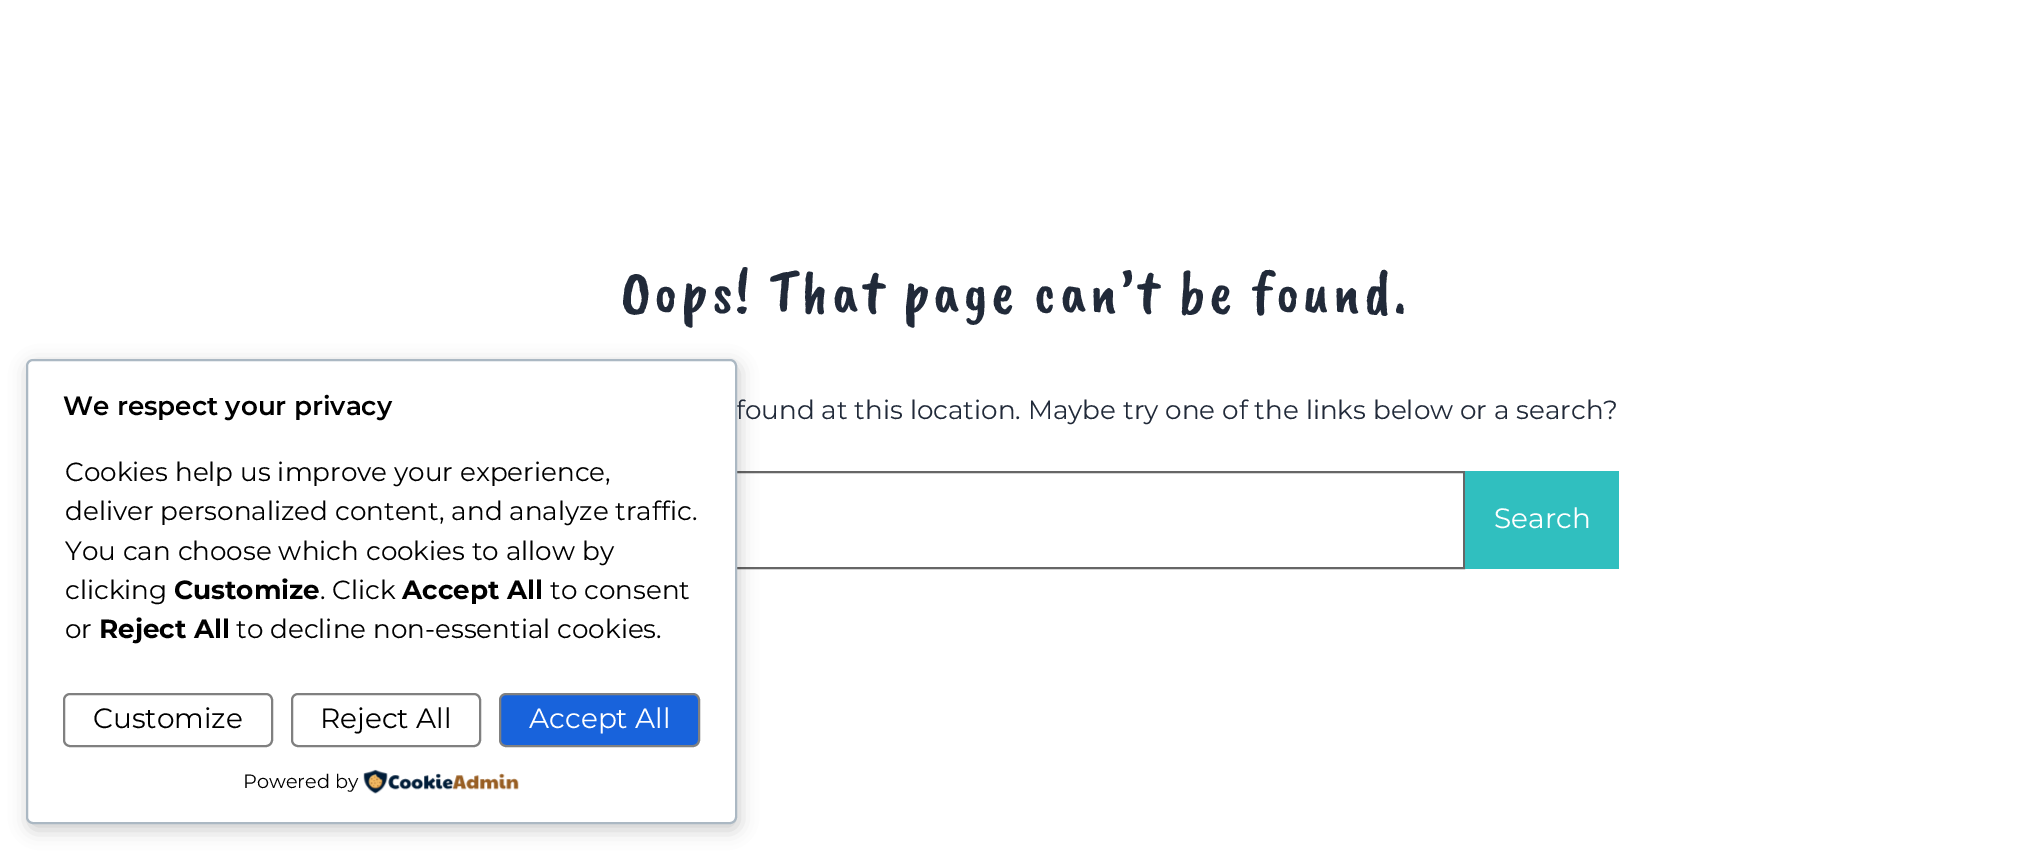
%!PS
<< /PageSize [2030 858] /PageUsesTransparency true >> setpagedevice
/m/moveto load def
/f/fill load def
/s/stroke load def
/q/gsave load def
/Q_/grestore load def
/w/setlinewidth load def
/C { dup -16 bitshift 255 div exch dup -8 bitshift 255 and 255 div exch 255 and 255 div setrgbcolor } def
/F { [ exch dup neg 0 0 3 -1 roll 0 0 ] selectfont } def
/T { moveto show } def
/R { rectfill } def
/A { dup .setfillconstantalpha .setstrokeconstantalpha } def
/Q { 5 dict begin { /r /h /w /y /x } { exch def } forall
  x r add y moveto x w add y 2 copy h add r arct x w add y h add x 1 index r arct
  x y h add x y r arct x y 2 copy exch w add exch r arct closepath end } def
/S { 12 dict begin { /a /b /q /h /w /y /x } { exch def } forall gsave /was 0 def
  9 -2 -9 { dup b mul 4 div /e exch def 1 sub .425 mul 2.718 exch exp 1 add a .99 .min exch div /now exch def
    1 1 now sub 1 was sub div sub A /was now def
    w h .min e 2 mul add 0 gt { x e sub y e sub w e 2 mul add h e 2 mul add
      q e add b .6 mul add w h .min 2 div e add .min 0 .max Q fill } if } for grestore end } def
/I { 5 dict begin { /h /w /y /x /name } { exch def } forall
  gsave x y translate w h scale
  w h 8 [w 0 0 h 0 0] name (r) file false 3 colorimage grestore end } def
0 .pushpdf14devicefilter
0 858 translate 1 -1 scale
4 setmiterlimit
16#FFFFFF C
0 0 2030 858 R
16#666666 C
2 w
412 472 1052 96 rectstroke
16#000000 C
28 364 711 466 7 9 .2 S
/Montserrat-Regular 26.25 F
16#212A39 C
(found at this location. Maybe try one of the links below or a search?) 736 419 T
16#FFFFFF C
27 360 709 463 6 Q q f Q_
16#ABB8C3 C
s
/Montserrat-SemiBold 26.25 F
16#000000 C
(We respect your privacy) 63 415 T
/Montserrat-Regular 26.25 F
(Cookies help us improve your experience,) 65 481 T
(deliver personalized content, and analyze traffic.) 65 520 T
(You can choose which cookies to allow by) 65 560 T
(clicking) 65 599 T
/Montserrat-Bold 26.25 F
(Customize) 174 599 T
/Montserrat-Regular 26.25 F
(. Click) 320 599 T
/Montserrat-Bold 26.25 F
(Accept All) 402 599 T
/Montserrat-Regular 26.25 F
(to consent) 550 599 T
(or) 65 638 T
/Montserrat-Bold 26.25 F
(Reject All) 99 638 T
/Montserrat-Regular 26.25 F
(to decline non-essential cookies.) 236 638 T
16#808080 C
64 694 208 52 6 Q s
/Montserrat-Regular 28 F
16#000000 C
(Customize) 93 728 T
16#808080 C
292 694 188 52 6 Q s
16#000000 C
(Reject All) 320 728 T
16#1863DC C
500 694 199 52 6 Q q f Q_
16#808080 C
s
16#FFFFFF C
(Accept All) 529 728 T
/Montserrat-Regular 19.25 F
16#000000 C
(Powered by) 243 788 T
(1.rgb) 363 769 156 25 I
/CaveatBrush-Regular 61.25 F
16#212A39 C
621 312 m 3.5 0 (Oops! That page can’t be found.) ashow
16#30BFBF C
1465 471 154 98 R
/Montserrat-Regular 28 F
16#FFFFFF C
(Search) 1494 528 T
.poppdf14devicefilter showpage
